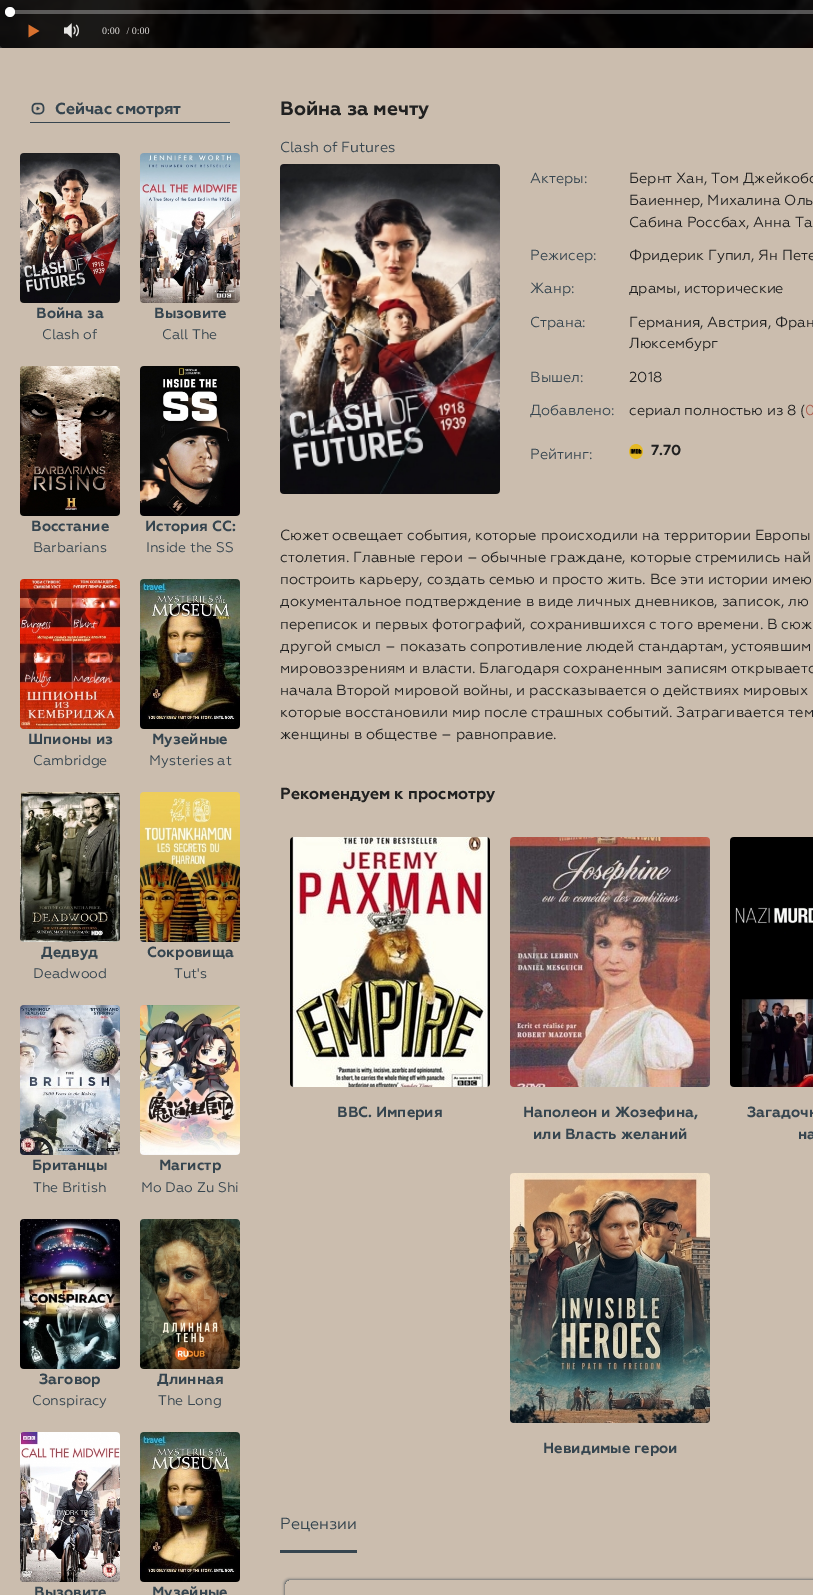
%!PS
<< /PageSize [813 1595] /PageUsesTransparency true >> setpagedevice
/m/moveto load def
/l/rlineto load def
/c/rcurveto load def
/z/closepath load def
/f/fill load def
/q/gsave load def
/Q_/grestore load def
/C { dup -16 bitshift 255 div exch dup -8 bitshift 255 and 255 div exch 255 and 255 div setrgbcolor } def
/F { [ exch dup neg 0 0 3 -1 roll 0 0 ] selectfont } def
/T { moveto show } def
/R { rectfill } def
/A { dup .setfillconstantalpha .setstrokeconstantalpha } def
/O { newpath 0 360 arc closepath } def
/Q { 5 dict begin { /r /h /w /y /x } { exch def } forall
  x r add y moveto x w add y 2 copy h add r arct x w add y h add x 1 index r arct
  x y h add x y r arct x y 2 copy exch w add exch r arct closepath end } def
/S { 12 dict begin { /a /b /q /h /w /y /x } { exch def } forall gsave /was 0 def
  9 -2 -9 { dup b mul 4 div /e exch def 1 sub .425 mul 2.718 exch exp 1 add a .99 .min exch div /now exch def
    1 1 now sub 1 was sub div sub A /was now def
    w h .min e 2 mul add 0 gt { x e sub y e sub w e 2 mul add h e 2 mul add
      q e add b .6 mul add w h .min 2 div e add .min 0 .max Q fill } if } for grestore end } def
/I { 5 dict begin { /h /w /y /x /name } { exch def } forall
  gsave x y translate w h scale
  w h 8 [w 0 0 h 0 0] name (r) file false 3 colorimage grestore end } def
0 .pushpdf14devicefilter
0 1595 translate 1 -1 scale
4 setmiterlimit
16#333333 C
0 0 813 1595 R
16#000000 C
0 -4 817 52 4 Q f
16#F47524 C
28.5 24.5 m 0 13 l 11 -6.5 l -11 -6.5 l f
(2.rgb) 64 23 15 15 I
(3.rgb) 0 46 2 2 I
0.1 A
16#000000 C
0 -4 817 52 4 Q f
/LiberationSerif-Regular 10 F
1 A
16#FFFFFF C
(0:00) 102 34 T
(/ 0:00) 127 34 T
(1.rgb) 0 0 813 48 I
0.3 A
10 10 803 4 R
1 A
10 12 5 O f
16#CBBDAE C
0 48 813 1547 R
16#36454F C
30 122 200 1 R
(4.rgb) 31 102 14 13 I
/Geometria-Bold 16 F
(Сейчас смотрят) 55 114 T
(5.rgb) 20 153 100 150 I
/Geometria-Bold 14.75 F
(Война за) 36 318 T
/Geometria-Regular 14 F
(Clash of) 42 339 T
(6.rgb) 140 153 100 150 I
/Geometria-Bold 14.75 F
(Вызовите) 154 318 T
/Geometria-Regular 14 F
(Call The) 162 339 T
(7.rgb) 20 366 100 150 I
/Geometria-Bold 14.75 F
(Восстание) 31 531 T
/Geometria-Regular 14 F
(Barbarians) 33 552 T
(8.rgb) 140 366 100 150 I
/Geometria-Bold 14.75 F
(История СС:) 145 531 T
/Geometria-Regular 14 F
(Inside the SS) 146 552 T
(9.rgb) 20 579 100 150 I
/Geometria-Bold 14.75 F
(Шпионы из) 28 744 T
/Geometria-Regular 14 F
(Cambridge) 33 765 T
(10.rgb) 140 579 100 150 I
/Geometria-Bold 14.75 F
(Музейные) 152 744 T
/Geometria-Regular 14 F
(Mysteries at) 149 765 T
(11.rgb) 20 792 100 150 I
/Geometria-Bold 14.75 F
(Дедвуд) 41 957 T
/Geometria-Regular 14 F
(Deadwood) 33 978 T
(12.rgb) 140 792 100 150 I
/Geometria-Bold 14.75 F
(Сокровища) 147 957 T
/Geometria-Regular 14 F
(Tut's) 174 978 T
(13.rgb) 20 1005 100 150 I
/Geometria-Bold 14.75 F
(Британцы) 32 1170 T
/Geometria-Regular 14 F
(The British) 33 1192 T
(14.rgb) 140 1005 100 150 I
/Geometria-Bold 14.75 F
(Магистр) 159 1170 T
/Geometria-Regular 14 F
(Mo Dao Zu Shi) 141 1192 T
(15.rgb) 20 1219 100 150 I
/Geometria-Bold 14.75 F
(Заговор) 39 1384 T
/Geometria-Regular 14 F
(Conspiracy) 32 1405 T
(16.rgb) 140 1219 100 150 I
/Geometria-Bold 14.75 F
(Длинная) 157 1384 T
/Geometria-Regular 14 F
(The Long) 158 1405 T
(17.rgb) 20 1432 100 150 I
/Geometria-Bold 14.75 F
(Вызовите) 34 1597 T
(18.rgb) 140 1432 100 150 I
(Музейные) 152 1597 T
/Geometria-Bold 19.25 F
16#212121 C
(Война за мечту) 280 115 T
/Geometria-Regular 14.5 F
16#36454F C
(Clash of Futures) 280 152 T
(19.rgb) 280 164 220 330 I
(Актеры:) 530 183 T
16#212121 C
(Бернт Хан, Том Джейкобс) 629 183 T
(Баиеннер, Михалина Оль) 629 205 T
(Сабина Россбах, Анна Та) 629 227 T
16#36454F C
(Режисер:) 530 260 T
16#212121 C
(Фридерик Гупил, Ян Пете) 629 260 T
16#36454F C
(Жанр:) 530 293 T
16#212121 C
(драмы, исторические) 629 293 T
16#36454F C
(Страна:) 530 327 T
16#212121 C
(Германия, Австрия, Фран) 629 327 T
(Люксембург) 629 348 T
16#36454F C
(Вышел:) 530 382 T
16#212121 C
(2018) 629 382 T
16#36454F C
(Добавлено:) 530 415 T
16#212121 C
(сериал полностью из 8 \() 629 415 T
16#B06153 C
(0) 805 415 T
16#36454F C
(Рейтинг:) 530 459 T
(20.rgb) 629 444 14 15 I
/Geometria-Bold 14.5 F
16#212121 C
(7.70) 651 455 T
/Geometria-Regular 14.7 F
(Сюжет освещает события, которые происходили на территории Европы) 280 540 T
(столетия. Главные герои – обычные граждане, которые стремились най) 280 562 T
(построить карьеру, создать семью и просто жить. Все эти истории имею) 280 584 T
(документальное подтверждение в виде личных дневников, записок, лю) 280 606 T
(переписок и первых фотографий, сохранившихся с того времени. В сюж) 280 629 T
(другой смысл – показать сопротивление людей стандартам, устоявшим) 280 651 T
(мировоззрениям и власти. Благодаря сохраненным записям открываетс) 280 673 T
(начала Второй мировой войны, и рассказывается о действиях мировых) 280 695 T
(которые восстановили мир после страшных событий. Затрагивается тем) 280 717 T
(женщины в обществе – равноправие.) 280 739 T
/Geometria-Bold 16 F
(Рекомендуем к просмотру) 280 799 T
(21.rgb) 290 837 200 250 I
/Geometria-Bold 14.75 F
16#36454F C
(BBC. Империя) 337 1117 T
(22.rgb) 510 837 200 250 I
(Наполеон и Жозефина,) 523 1117 T
(или Власть желаний) 533 1139 T
(23.rgb) 730 837 83 250 I
(Загадочн) 747 1117 T
(на) 798 1139 T
(24.rgb) 510 1173 200 250 I
(Невидимые герои) 543 1453 T
/Geometria-Regular 16 F
(Рецензии) 280 1529 T
280 1550 77 3 R
q
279 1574 m 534 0 l 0 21 l -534 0 l z 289 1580 m 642 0 l 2 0 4 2 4 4 c 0 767 l 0 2 -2 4 -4 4 c -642 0 l -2 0 -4 -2 -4 -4 c 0 -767 l 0 -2 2 -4 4 -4 c z eoclip newpath
285 1580 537 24 4 1.5 1 S
Q_
.poppdf14devicefilter showpage
